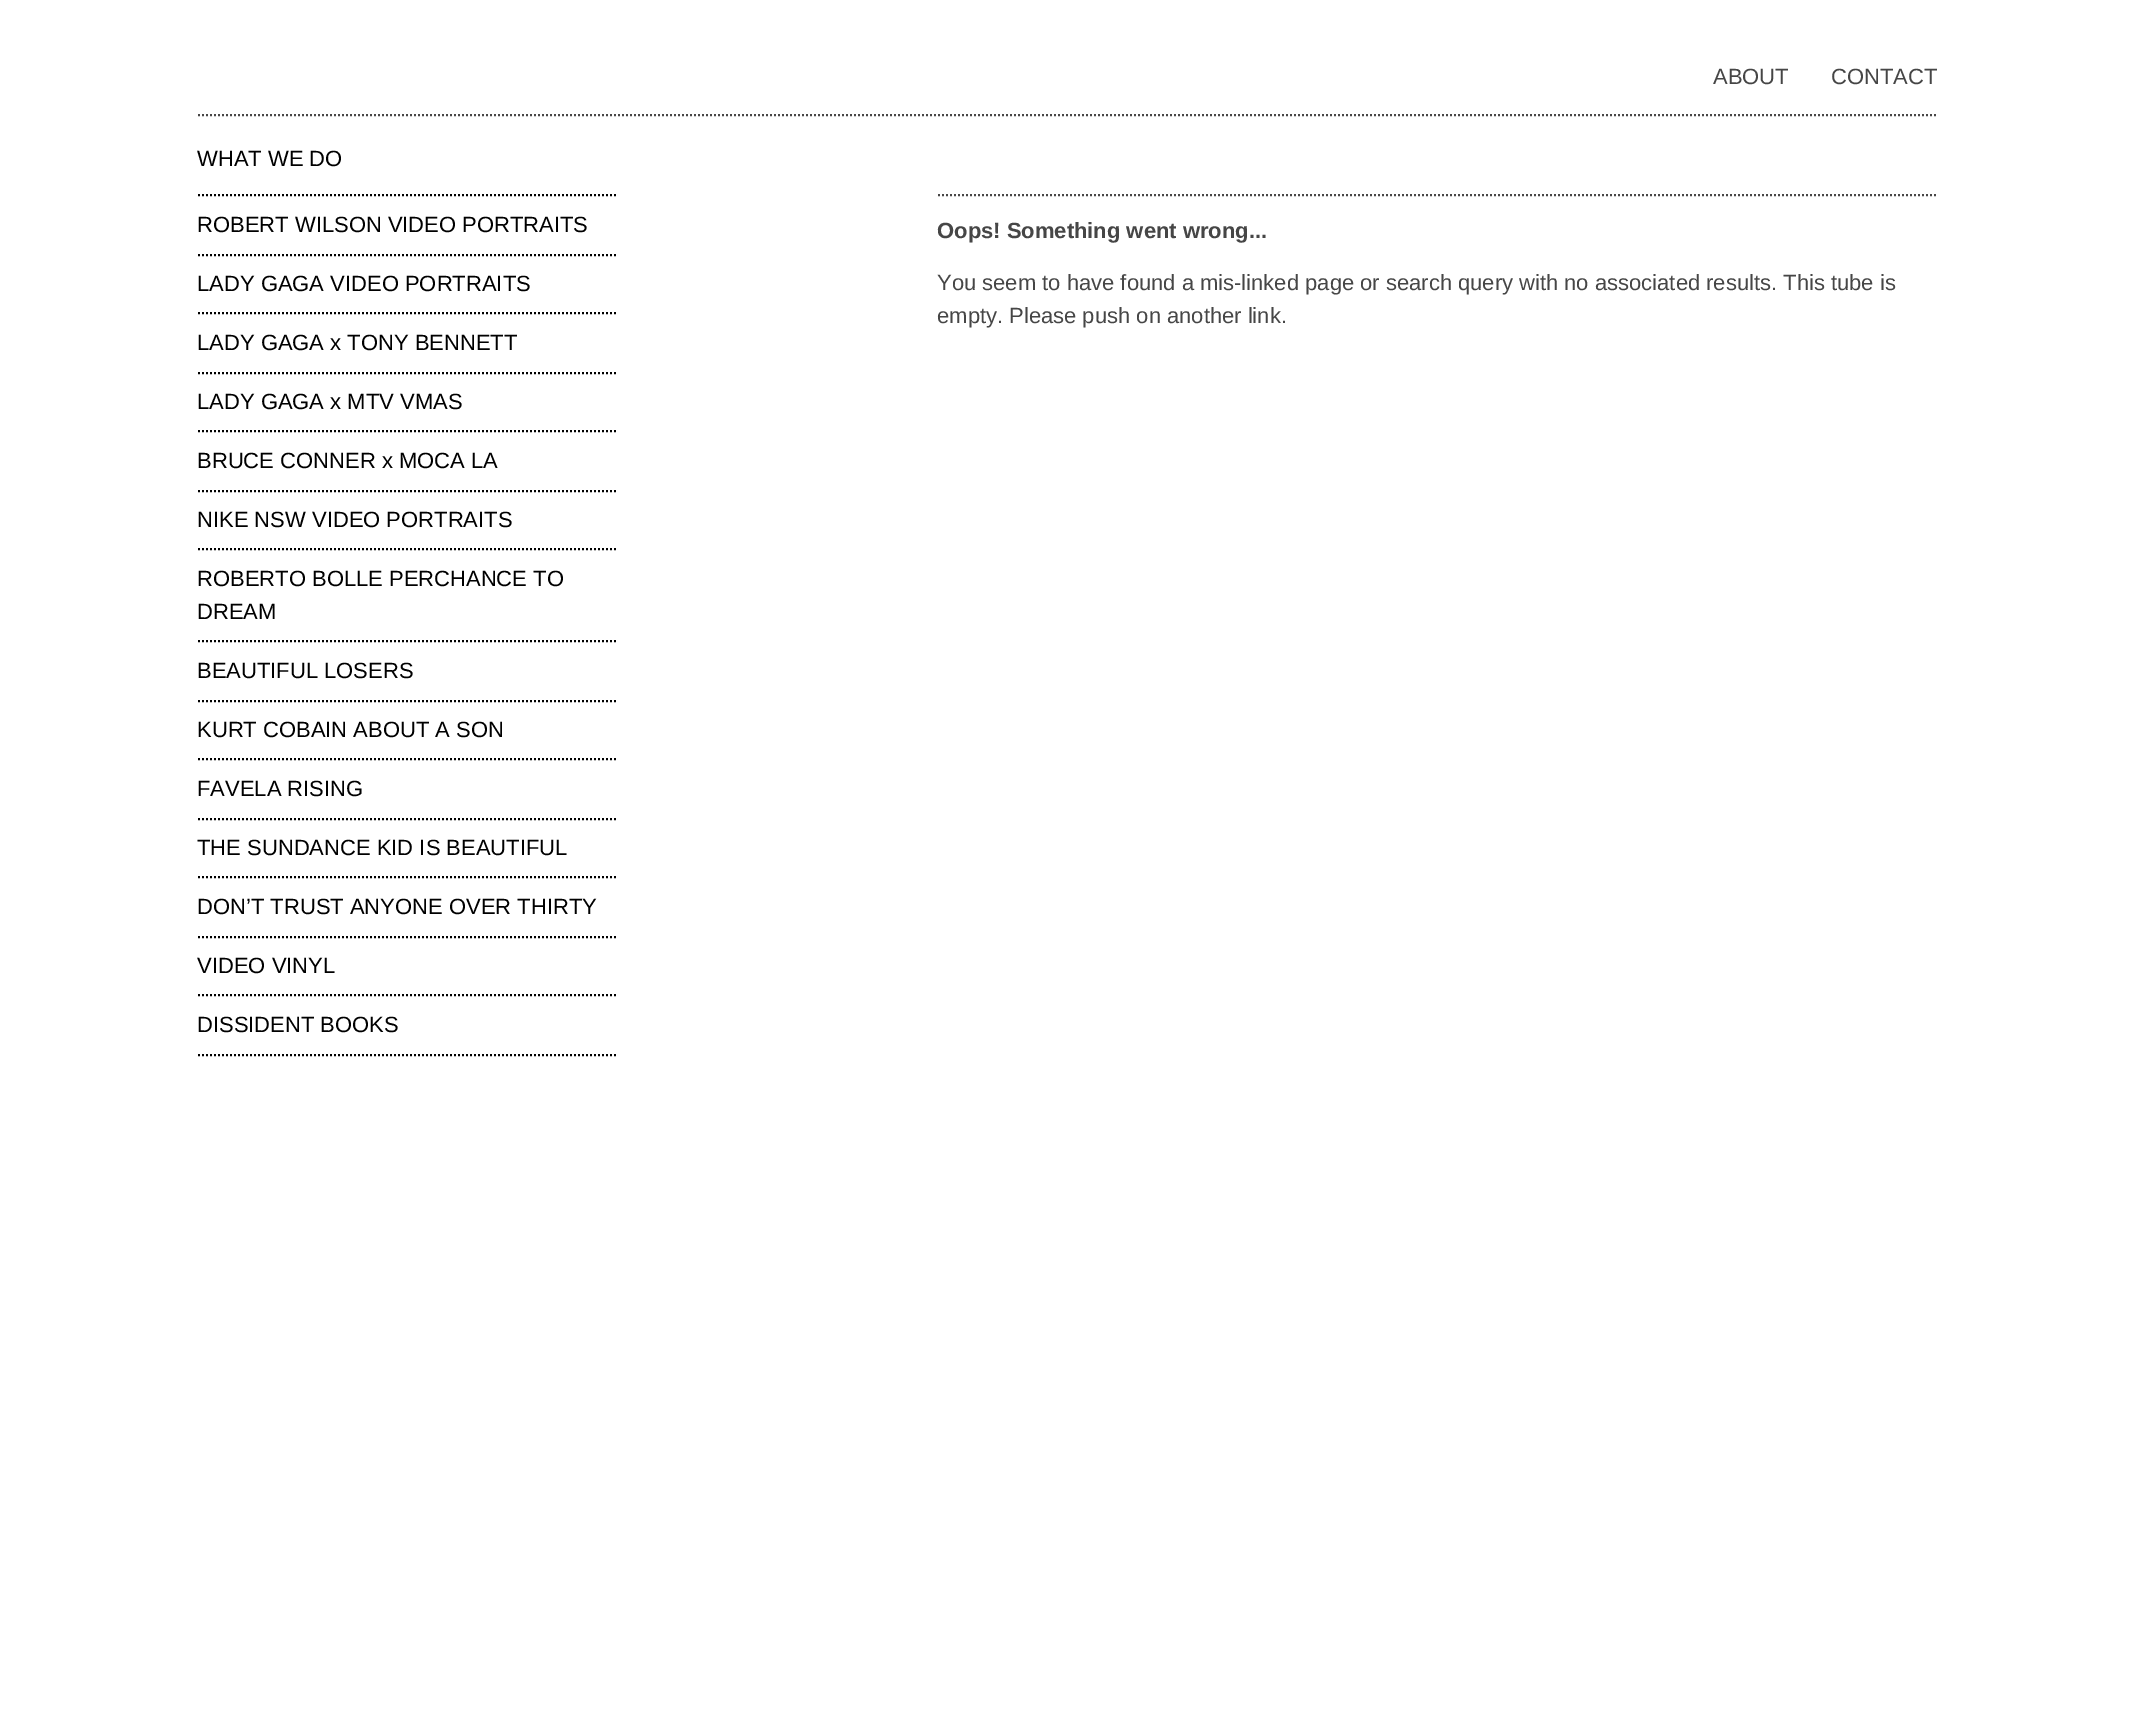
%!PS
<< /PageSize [2149 1734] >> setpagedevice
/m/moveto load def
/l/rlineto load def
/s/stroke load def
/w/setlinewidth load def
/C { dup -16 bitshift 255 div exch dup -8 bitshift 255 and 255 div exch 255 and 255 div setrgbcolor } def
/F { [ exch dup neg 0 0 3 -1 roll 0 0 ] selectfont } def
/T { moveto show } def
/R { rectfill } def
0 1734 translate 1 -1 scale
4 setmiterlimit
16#FFFFFF C
0 0 2149 1734 R
16#484747 C
2 w
[2 2] 0 setdash
198 115 m 1740 0 l s
/LiberationSans-Regular 22 F
16#464646 C
(ABOUT) 1713 84 T
(CONTACT) 1831 84 T
16#000000 C
(WHAT WE DO) 197 166 T
198 195 m 420 0 l s
198 255 m 420 0 l s
(ROBERT WILSON VIDEO PORTRAITS) 197 232 T
198 313 m 420 0 l s
(LADY GAGA VIDEO PORTRAITS) 197 291 T
198 373 m 420 0 l s
(LADY GAGA x TONY BENNETT) 197 350 T
198 431 m 420 0 l s
(LADY GAGA x MTV VMAS) 197 409 T
198 491 m 420 0 l s
(BRUCE CONNER x MOCA LA) 197 468 T
198 549 m 420 0 l s
(NIKE NSW VIDEO PORTRAITS) 197 527 T
198 641 m 420 0 l s
(ROBERTO BOLLE PERCHANCE TO) 197 586 T
(DREAM) 197 619 T
198 701 m 420 0 l s
(BEAUTIFUL LOSERS) 197 678 T
198 759 m 420 0 l s
(KURT COBAIN ABOUT A SON) 197 737 T
198 819 m 420 0 l s
(FAVELA RISING) 197 796 T
198 877 m 420 0 l s
(THE SUNDANCE KID IS BEAUTIFUL) 197 855 T
198 937 m 420 0 l s
(DON’T TRUST ANYONE OVER THIRTY) 197 914 T
198 995 m 420 0 l s
(VIDEO VINYL) 197 973 T
198 1055 m 420 0 l s
(DISSIDENT BOOKS) 197 1032 T
16#484747 C
938 195 m 1000 0 l s
/LiberationSans-Bold 22 F
16#464646 C
(Oops! Something went wrong...) 937 238 T
/LiberationSans-Regular 22 F
(You seem to have found a mis-linked page or search query with no associated results. This tube is) 937 290 T
(empty. Please push on another link.) 937 323 T
showpage
